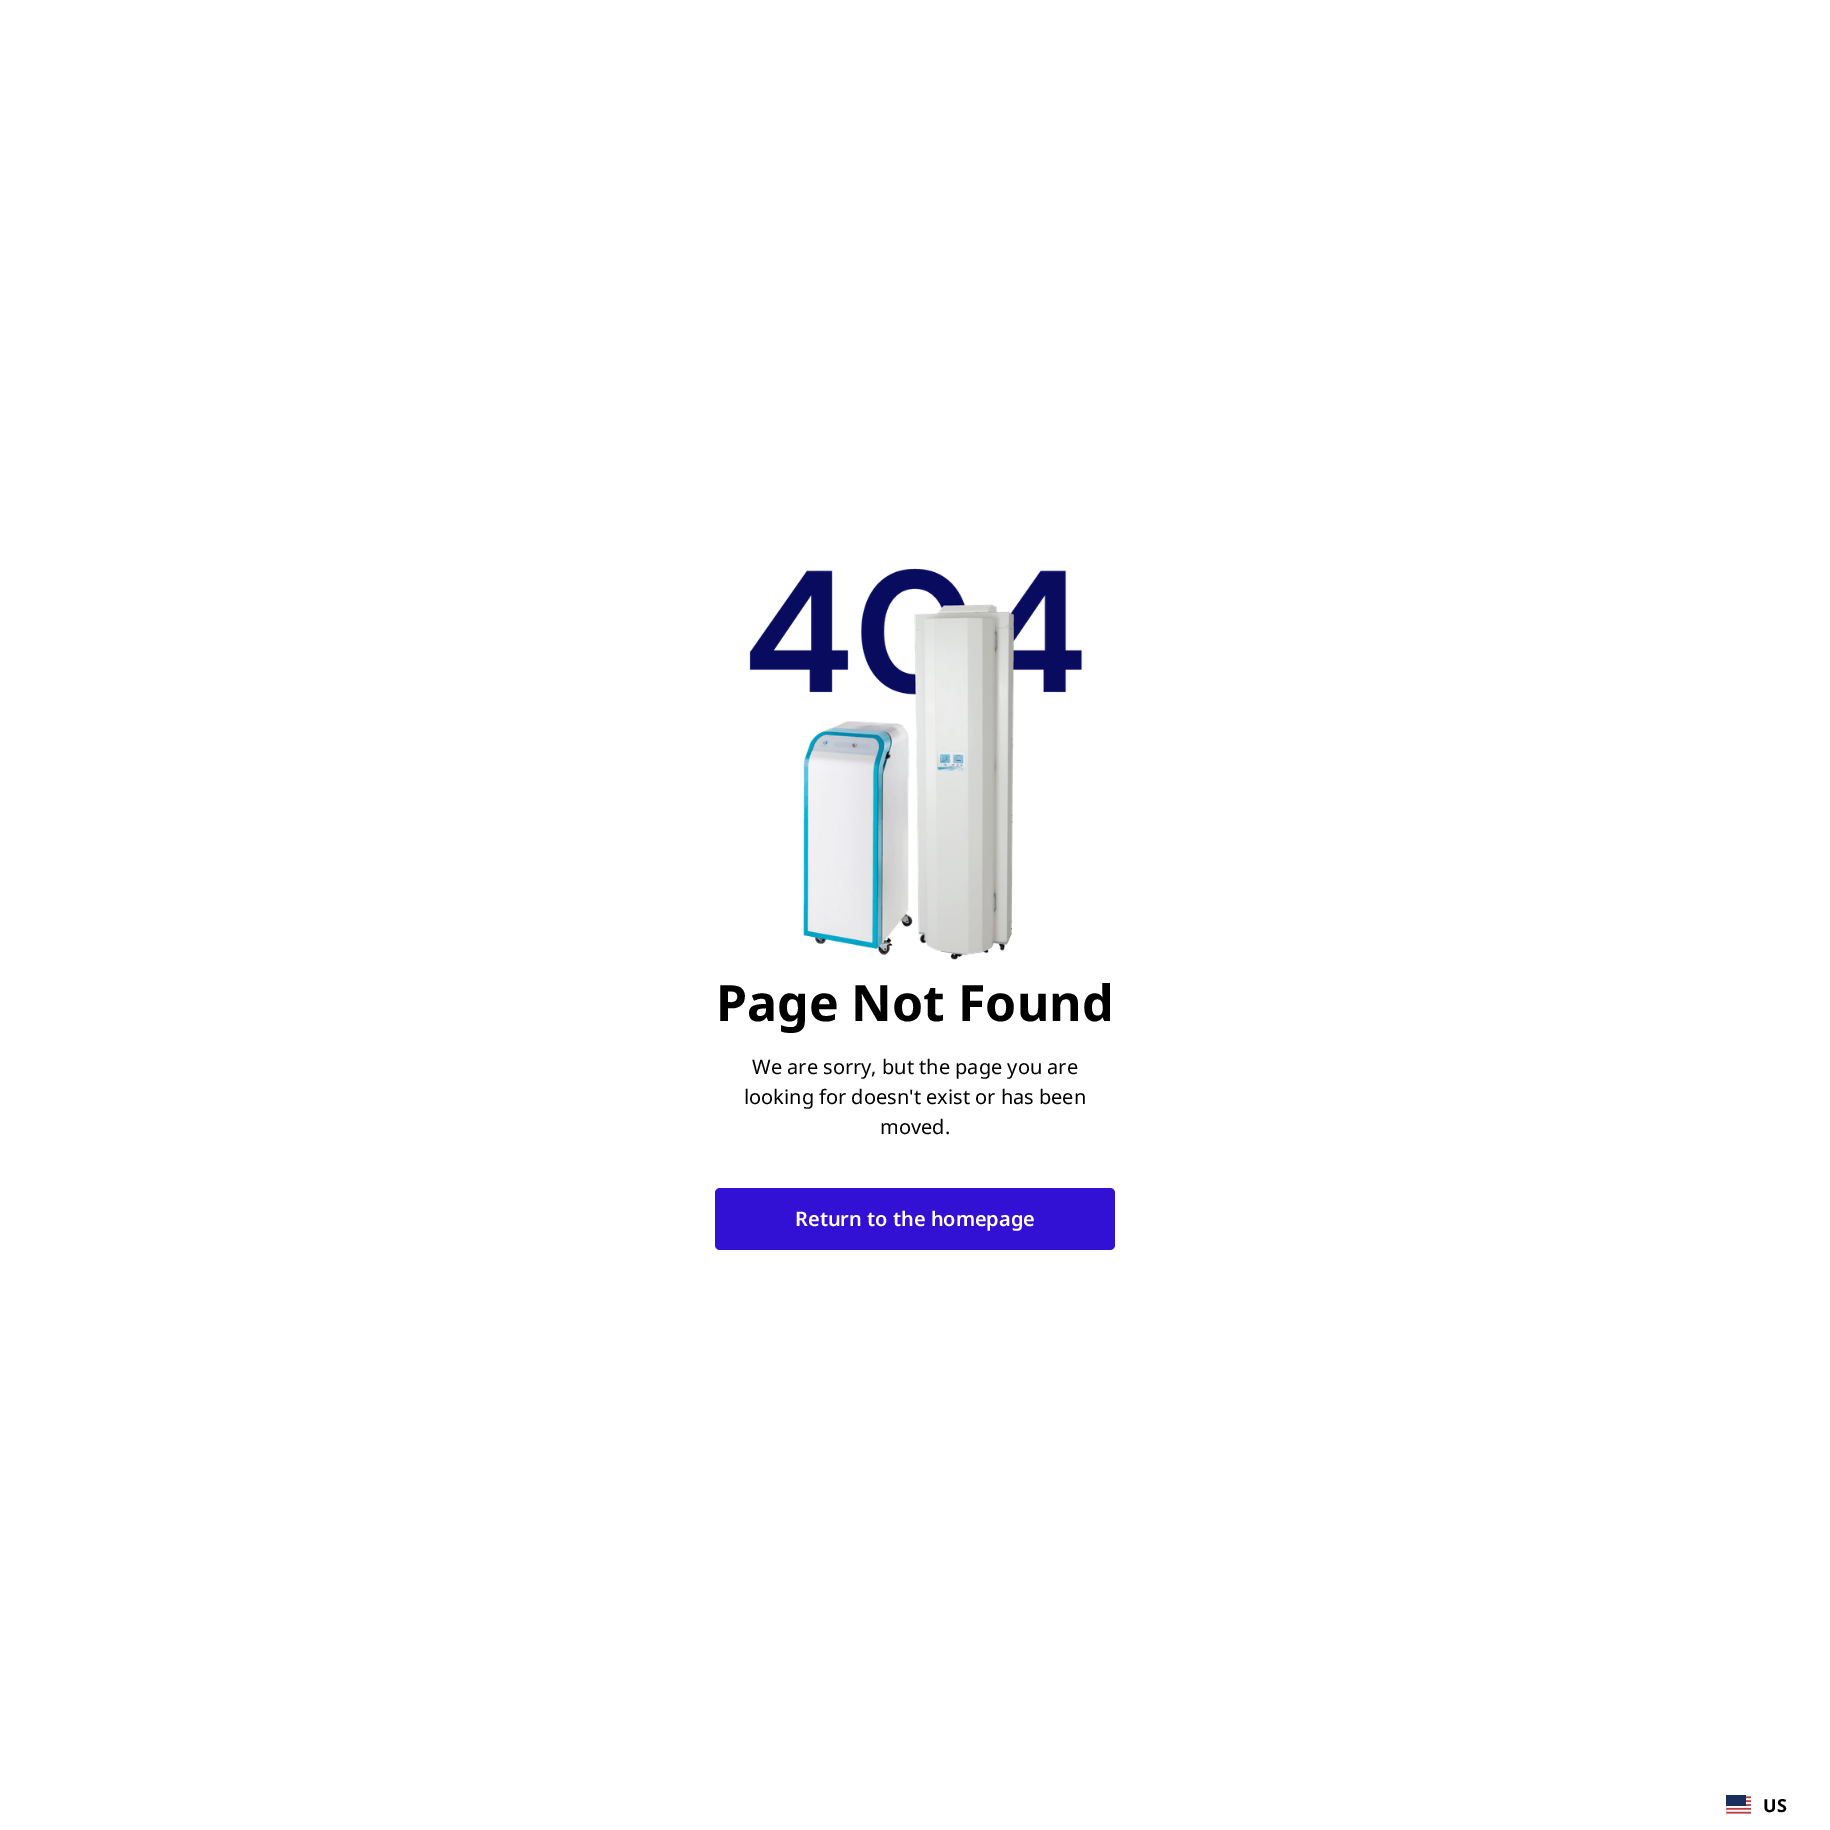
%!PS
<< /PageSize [1830 1830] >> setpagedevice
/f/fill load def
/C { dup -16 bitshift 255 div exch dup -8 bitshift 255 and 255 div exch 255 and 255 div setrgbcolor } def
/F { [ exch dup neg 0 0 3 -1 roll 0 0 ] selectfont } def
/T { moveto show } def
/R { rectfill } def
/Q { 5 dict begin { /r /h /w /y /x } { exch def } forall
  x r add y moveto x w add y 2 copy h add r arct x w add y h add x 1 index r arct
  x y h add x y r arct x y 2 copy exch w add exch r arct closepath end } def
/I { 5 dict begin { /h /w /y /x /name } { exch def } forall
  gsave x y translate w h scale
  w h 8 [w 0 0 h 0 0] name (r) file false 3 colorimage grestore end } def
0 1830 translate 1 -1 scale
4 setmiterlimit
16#FFFFFF C
0 0 1830 1830 R
(1.rgb) 749 568 334 392 I
/NotoSans-Bold 50 F
16#000000 C
(Page Not Found) 716 1021 T
/NotoSans-Regular 20 F
(We are sorry, but the page you are) 752 1074 T
(looking for doesn't exist or has been) 744 1104 T
(moved.) 880 1134 T
16#3311D4 C
715 1188 400 62 5 Q f
/NotoSans-SemiBold 20 F
16#FFFFFF C
(Return to the homepage) 795 1226 T
(2.rgb) 1726 1795 25 20 I
/NotoSans-Bold 18 F
16#000000 C
(US) 1763 1812 T
showpage
